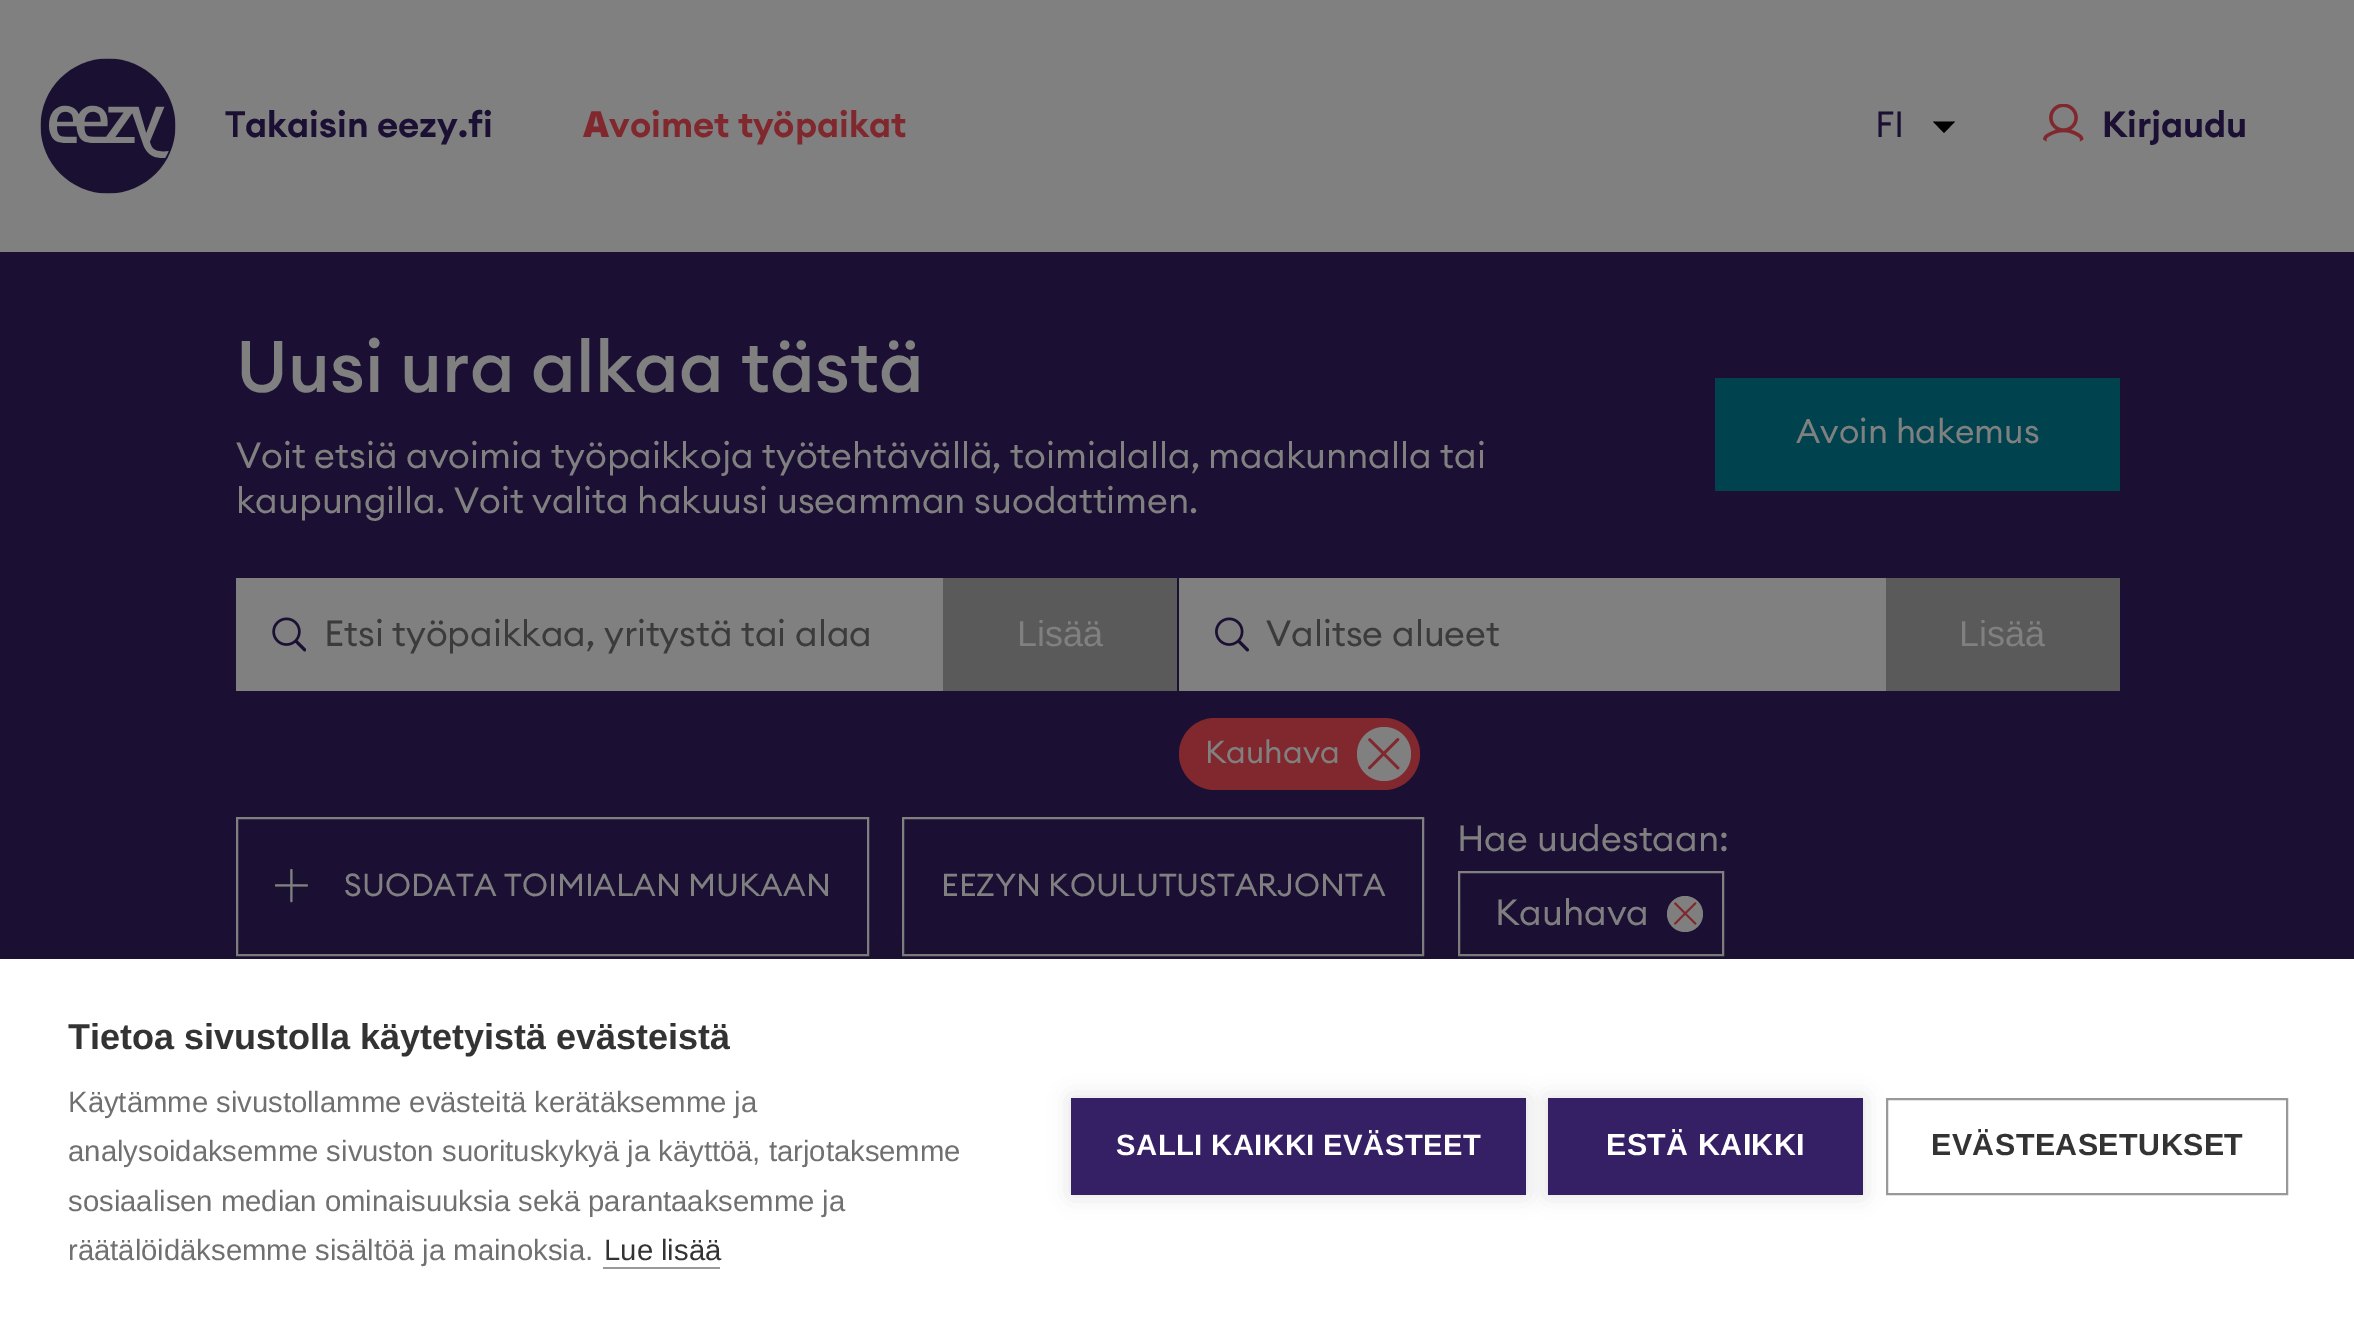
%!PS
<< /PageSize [2354 1330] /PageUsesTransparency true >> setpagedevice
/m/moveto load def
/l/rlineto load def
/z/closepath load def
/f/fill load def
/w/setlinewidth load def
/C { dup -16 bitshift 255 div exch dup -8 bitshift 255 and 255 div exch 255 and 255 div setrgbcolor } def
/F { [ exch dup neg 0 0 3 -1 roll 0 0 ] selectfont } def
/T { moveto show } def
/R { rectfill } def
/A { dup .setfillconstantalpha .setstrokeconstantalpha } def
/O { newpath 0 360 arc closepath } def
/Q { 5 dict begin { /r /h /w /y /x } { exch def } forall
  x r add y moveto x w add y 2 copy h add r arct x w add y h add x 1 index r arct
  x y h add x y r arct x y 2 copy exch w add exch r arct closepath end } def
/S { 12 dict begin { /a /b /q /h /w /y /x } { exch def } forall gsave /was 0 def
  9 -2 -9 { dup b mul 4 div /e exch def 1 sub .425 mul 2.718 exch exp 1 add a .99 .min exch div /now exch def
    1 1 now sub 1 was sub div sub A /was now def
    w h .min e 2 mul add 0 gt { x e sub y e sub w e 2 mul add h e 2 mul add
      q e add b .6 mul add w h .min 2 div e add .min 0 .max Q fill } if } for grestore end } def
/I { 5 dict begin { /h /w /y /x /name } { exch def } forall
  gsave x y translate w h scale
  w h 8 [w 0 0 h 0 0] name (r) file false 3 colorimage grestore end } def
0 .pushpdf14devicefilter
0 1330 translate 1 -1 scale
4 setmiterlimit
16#808080 C
0 0 2354 1330 R
(1.rgb) 40 58 136 136 I
/NotoSans-SemiBold 36 F
16#1B1033 C
(T) 225 137 T
/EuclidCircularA-SemiBold 36 F
(akaisin eezy.fi) 245 137 T
/NotoSans-Black 36 F
16#80282D C
(A) 583 137 T
/EuclidCircularA-SemiBold 36 F
(voimet työpaikat) 609 137 T
/EuclidCircularA-Regular 36 F
16#1B1033 C
(FI) 1875 137 T
16#000000 C
1933 121.5 m 11 11.5 l 11 -11.5 l z f
(2.rgb) 2043 104 41 38 I
/EuclidCircularA-SemiBold 36 F
16#1B1033 C
(Kirjaudu) 2102 137 T
0 252 2354 707 R
/EuclidCircularA-Medium 72 F
16#808080 C
(Uusi ura alkaa tästä) 236 392 T
/EuclidCircularA-Regular 36 F
(Voit etsiä avoimia työpaikkoja työtehtävällä, toimialalla, maakunnalla tai) 236 468 T
(kaupungilla. Voit valita hakuusi useamman suodattimen.) 236 513 T
16#00434E C
1715 378 405 113 R
/EuclidCircularA-Regular 33.75 F
16#808080 C
(Avoin hakemus) 1796 443 T
236 578 707 113 R
(3.rgb) 272 617 34 35 I
/EuclidCircularA-Regular 36 F
16#3B3B3B C
(Etsi työpaikkaa, yritystä tai alaa) 324 646 T
16#5A5A5A C
943 578 234 113 R
/LiberationSans-Regular 36 F
16#808080 C
(Lisää) 1017 646 T
1179 578 707 113 R
(4.rgb) 1215 617 34 35 I
/EuclidCircularA-Regular 36 F
16#3B3B3B C
(Valitse alueet) 1266 646 T
16#5A5A5A C
1886 578 234 113 R
/LiberationSans-Regular 36 F
16#808080 C
(Lisää) 1959 646 T
16#80282D C
1179 718 241 72 36 Q f
/EuclidCircularA-Regular 31.5 F
16#808080 C
(Kauhava) 1205 763 T
1384 754 27 O f
(5.rgb) 1368 738 32 32 I
2 w
237 818 631 137 rectstroke
(6.rgb) 275 869 33 34 I
(SUODATA TOIMIALAN MUKAAN) 344 896 T
903 818 520 137 rectstroke
(EEZYN KOULUTUSTARJONTA) 941 896 T
/EuclidCircularA-Regular 36 F
(Hae uudestaan:) 1457 851 T
1459 872 264 83 rectstroke
(Kauhava) 1495 925 T
1685 914 18 O f
(7.rgb) 1674 902 23 23 I
16#000000 C
0 959 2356 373 0 22.5 .1 S
16#FFFFFF C
0 959 2354 371 R
/LiberationSans-Bold 36 F
16#333333 C
(Tietoa sivustolla käytetyistä evästeistä) 68 1049 T
/LiberationSans-Regular 29.25 F
16#707070 C
(Käytämme sivustollamme evästeitä kerätäksemme ja) 68 1112 T
(analysoidaksemme sivuston suorituskykyä ja käyttöä, tarjotaksemme) 68 1161 T
(sosiaalisen median ominaisuuksia sekä parantaaksemme ja) 68 1211 T
(räätälöidäksemme sisältöä ja mainoksia.) 68 1260 T
16#333333 C
(Lue lisää) 604 1260 T
16#999999 C
603 1267 117 2 R
16#000000 C
1071 1098 455 97 0 11 .12 S
16#351F65 C
1071 1098 455 97 R
/LiberationSans-Bold 29.25 F
16#FFFFFF C
1116 1155 m .45 0 (SALLI KAIKKI EVÄSTEET) ashow
16#000000 C
1548 1098 315 97 0 11 .12 S
16#351F65 C
1548 1098 315 97 R
/LiberationSans-Bold 30.4 F
16#FFFFFF C
1606 1155 m .45 0 (ESTÄ KAIKKI) ashow
16#999999 C
1887 1099 400 95 rectstroke
16#333333 C
1931 1155 m .45 0 (EVÄSTEASETUKSET) ashow
.poppdf14devicefilter showpage
